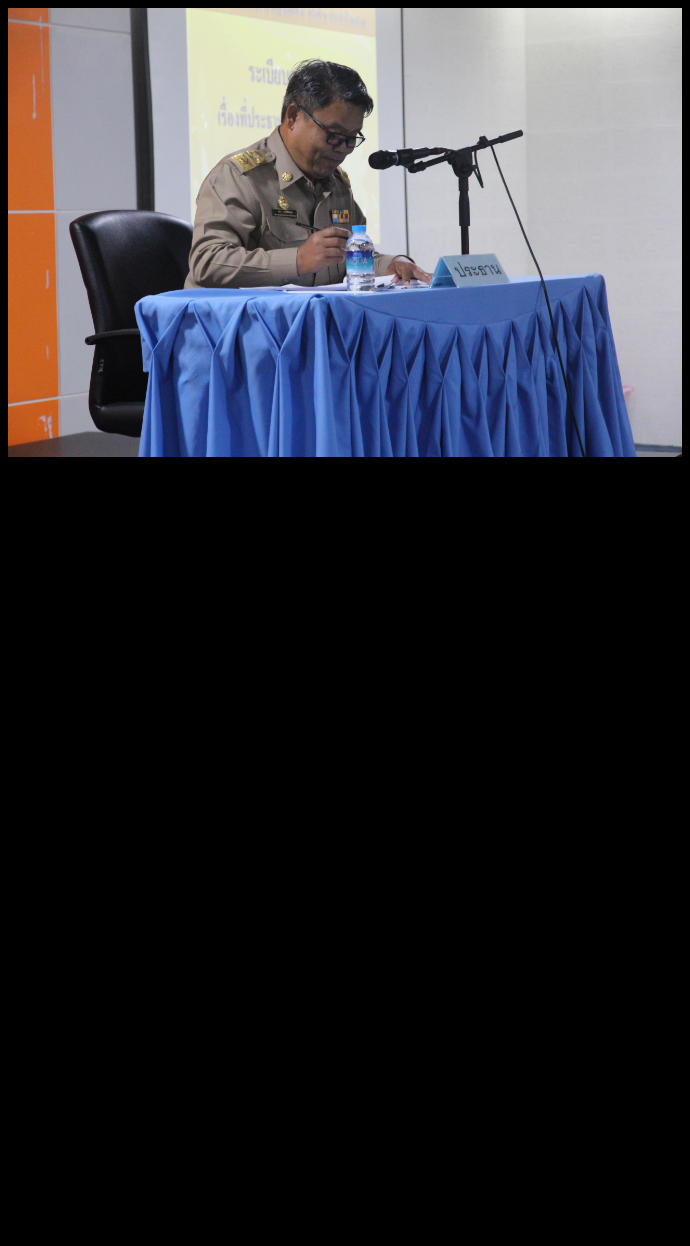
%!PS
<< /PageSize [690 1246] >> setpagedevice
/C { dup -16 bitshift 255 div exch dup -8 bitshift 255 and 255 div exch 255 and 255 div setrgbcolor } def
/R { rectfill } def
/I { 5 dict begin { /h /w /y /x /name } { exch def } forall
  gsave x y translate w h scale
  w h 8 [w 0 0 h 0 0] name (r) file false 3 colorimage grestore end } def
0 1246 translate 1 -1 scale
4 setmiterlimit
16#000000 C
0 0 690 1246 R
(1.rgb) 8 8 674 449 I
showpage
